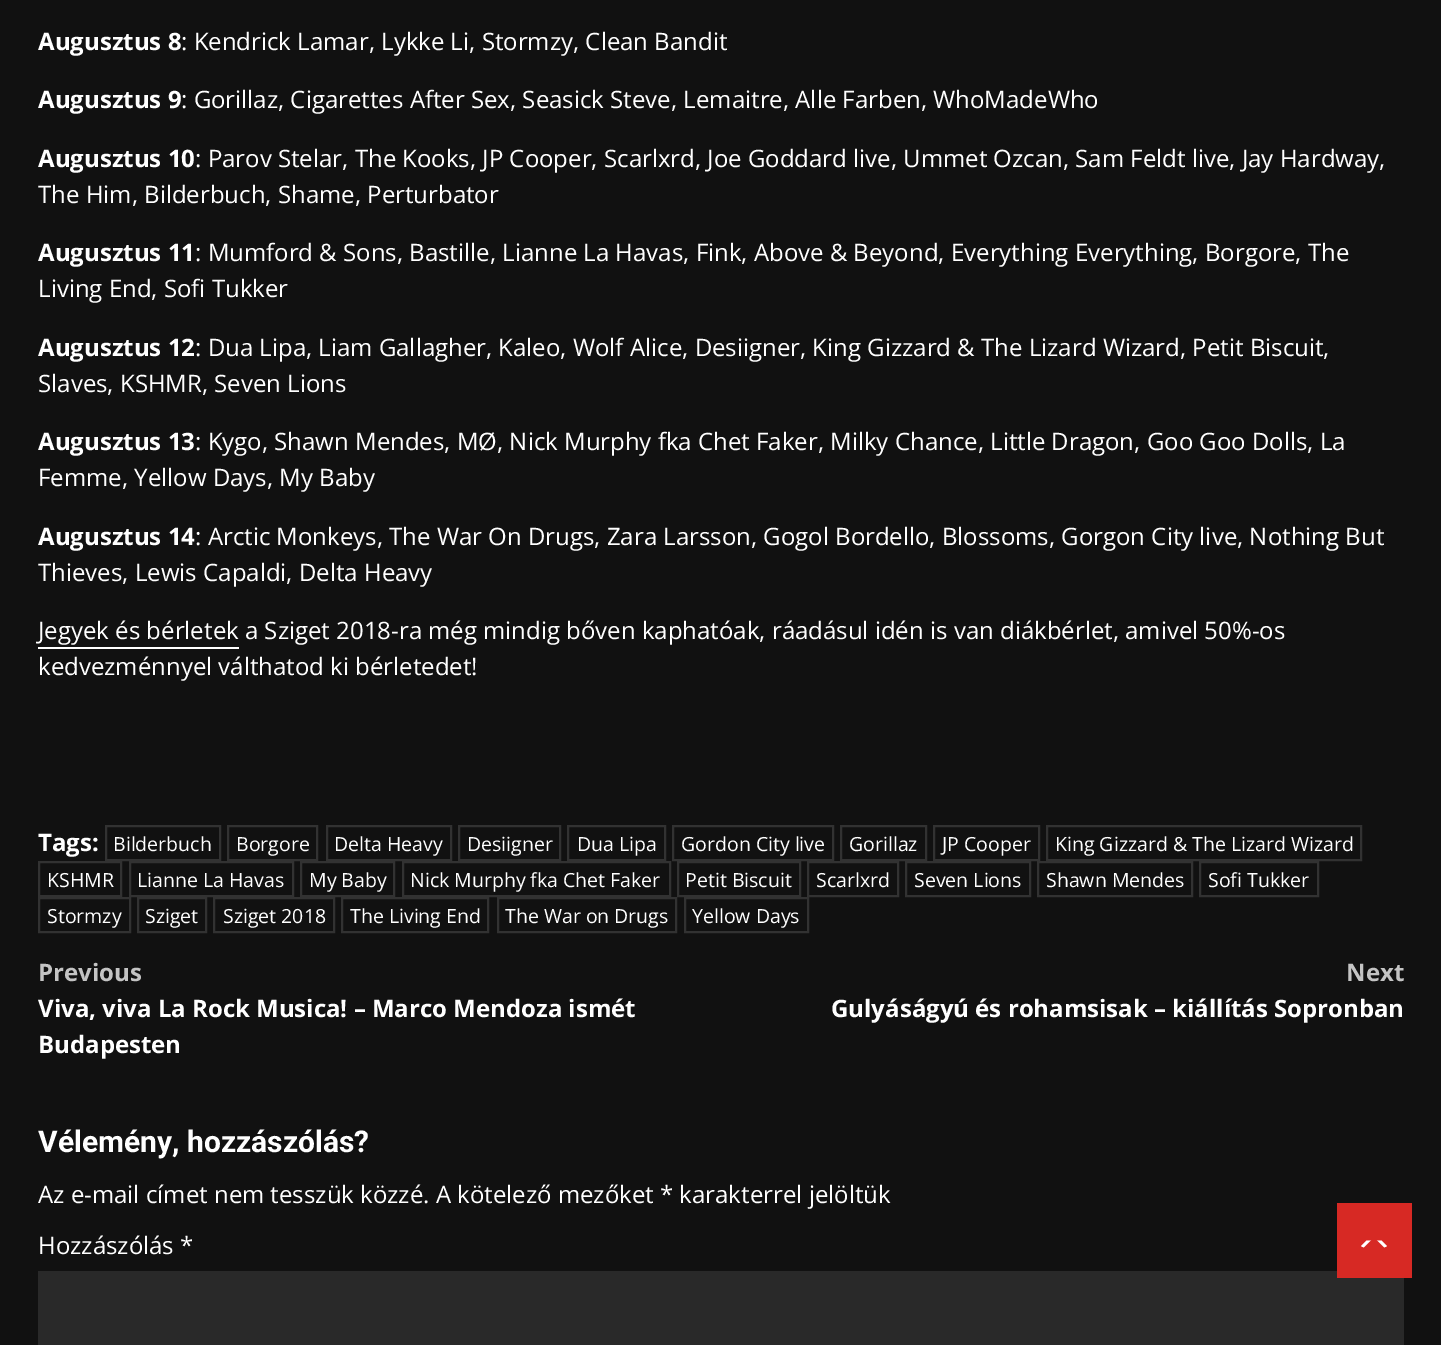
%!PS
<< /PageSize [1441 1345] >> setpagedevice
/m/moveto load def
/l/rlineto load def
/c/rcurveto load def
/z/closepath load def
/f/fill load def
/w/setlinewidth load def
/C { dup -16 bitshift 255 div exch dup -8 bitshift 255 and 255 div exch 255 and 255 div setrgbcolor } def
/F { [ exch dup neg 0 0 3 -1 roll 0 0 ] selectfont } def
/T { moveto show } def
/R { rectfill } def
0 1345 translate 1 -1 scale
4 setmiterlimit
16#111111 C
0 0 1441 1345 R
/OpenSans-Bold 24 F
16#FFFFFF C
(Augusztus 8) 38 50 T
/OpenSans-Regular 24 F
(: Kendrick Lamar, Lykke Li, Stormzy, Clean Bandit) 181 50 T
/OpenSans-Bold 24 F
(Augusztus 9) 38 108 T
/OpenSans-Regular 24 F
(: Gorillaz, Cigarettes After Sex, Seasick Steve, Lemaitre, Alle Farben, WhoMadeWho) 181 108 T
/OpenSans-Bold 24 F
(Augusztus 10) 38 167 T
/OpenSans-Regular 24 F
(: Parov Stelar, The Kooks, JP Cooper, Scarlxrd, Joe Goddard live, Ummet Ozcan, Sam Feldt live, Jay Hardway,) 195 167 T
(The Him, Bilderbuch, Shame, Perturbator) 38 203 T
/OpenSans-Bold 24 F
(Augusztus 11) 38 261 T
/OpenSans-Regular 24 F
(: Mumford & Sons, Bastille, Lianne La Havas, Fink, Above & Beyond, Everything Everything, Borgore, The) 195 261 T
(Living End, Sofi Tukker) 38 297 T
/OpenSans-Bold 24 F
(Augusztus 12) 38 356 T
/OpenSans-Regular 24 F
(: Dua Lipa, Liam Gallagher, Kaleo, Wolf Alice, Desiigner, King Gizzard & The Lizard Wizard, Petit Biscuit,) 195 356 T
(Slaves, KSHMR, Seven Lions) 38 392 T
/OpenSans-Bold 24 F
(Augusztus 13) 38 450 T
/OpenSans-Regular 24 F
(: Kygo, Shawn Mendes, MØ, Nick Murphy fka Chet Faker, Milky Chance, Little Dragon, Goo Goo Dolls, La) 195 450 T
(Femme, Yellow Days, My Baby) 38 486 T
/OpenSans-Bold 24 F
(Augusztus 14) 38 545 T
/OpenSans-Regular 24 F
(: Arctic Monkeys, The War On Drugs, Zara Larsson, Gogol Bordello, Blossoms, Gorgon City live, Nothing But) 195 545 T
(Thieves, Lewis Capaldi, Delta Heavy) 38 581 T
(Jegyek és bérletek a Sziget 2018-ra még mindig bőven kaphatóak, ráadásul idén is van diákbérlet, amivel 50%-os) 38 639 T
38 647 201 2 R
(kedvezménnyel válthatod ki bérletedet!) 38 675 T
/OpenSans-Bold 24 F
(Tags:) 38 851 T
16#323232 C
2 w
106 826 114 34 rectstroke
/OpenSans-Regular 19.5 F
16#FFFFFF C
(Bilderbuch) 113 851 T
16#323232 C
228 826 89 34 rectstroke
16#FFFFFF C
(Borgore) 236 851 T
16#323232 C
327 826 124 34 rectstroke
16#FFFFFF C
(Delta Heavy) 334 851 T
16#323232 C
459 826 101 34 rectstroke
16#FFFFFF C
(Desiigner) 467 851 T
16#323232 C
568 826 97 34 rectstroke
16#FFFFFF C
(Dua Lipa) 577 851 T
16#323232 C
673 826 160 34 rectstroke
16#FFFFFF C
(Gordon City live) 681 851 T
16#323232 C
841 826 85 34 rectstroke
16#FFFFFF C
(Gorillaz) 849 851 T
16#323232 C
934 826 105 34 rectstroke
16#FFFFFF C
(JP Cooper) 942 851 T
16#323232 C
1047 826 314 34 rectstroke
16#FFFFFF C
(King Gizzard & The Lizard Wizard) 1055 851 T
16#323232 C
39 862 82 34 rectstroke
16#FFFFFF C
(KSHMR) 47 887 T
16#323232 C
130 862 163 34 rectstroke
16#FFFFFF C
(Lianne La Havas) 137 887 T
16#323232 C
301 862 93 34 rectstroke
16#FFFFFF C
(My Baby) 309 887 T
16#323232 C
403 862 267 34 rectstroke
16#FFFFFF C
(Nick Murphy fka Chet Faker) 410 887 T
16#323232 C
678 862 122 34 rectstroke
16#FFFFFF C
(Petit Biscuit) 685 887 T
16#323232 C
808 862 90 34 rectstroke
16#FFFFFF C
(Scarlxrd) 816 887 T
16#323232 C
906 862 124 34 rectstroke
16#FFFFFF C
(Seven Lions) 914 887 T
16#323232 C
1038 862 154 34 rectstroke
16#FFFFFF C
(Shawn Mendes) 1046 887 T
16#323232 C
1200 862 118 34 rectstroke
16#FFFFFF C
(Sofi Tukker) 1208 887 T
16#323232 C
39 898 91 34 rectstroke
16#FFFFFF C
(Stormzy) 47 923 T
16#323232 C
138 898 68 34 rectstroke
16#FFFFFF C
(Sziget) 145 923 T
16#323232 C
214 898 120 34 rectstroke
16#FFFFFF C
(Sziget 2018) 223 923 T
16#323232 C
342 898 146 34 rectstroke
16#FFFFFF C
(The Living End) 350 923 T
16#323232 C
498 898 178 34 rectstroke
16#FFFFFF C
(The War on Drugs) 505 923 T
16#323232 C
685 898 123 34 rectstroke
16#FFFFFF C
(Yellow Days) 692 923 T
/OpenSans-Bold 24 F
16#C4C4C4 C
(Previous) 38 981 T
16#FFFFFF C
(Viva, viva La Rock Musica! – Marco Mendoza ismét) 38 1017 T
(Budapesten) 38 1053 T
16#C4C4C4 C
(Next) 1346 981 T
16#FFFFFF C
(Gulyáságyú és rohamsisak – kiállítás Sopronban) 831 1017 T
/Roboto-Bold 30 F
(Vélemény, hozzászólás?) 38 1152 T
/OpenSans-Regular 24 F
(Az e-mail címet nem tesszük közzé. A kötelező mezőket * karakterrel jelöltük) 38 1203 T
(Hozzászólás *) 38 1254 T
16#292929 C
38 1271 1366 74 R
16#D72924 C
1337 1203 75 75 R
16#FFFFFF C
1366.5 1248 m 15 0 l 2 0 4 -1 5.5 -2 c -5.5 -5.5 l -15 0 l -5.5 5.5 l 1.5 1 3.5 2 5.5 2 c z f
16#D72924 C
1389 1252.5 m -30 0 l 15 -15 l z f
showpage
